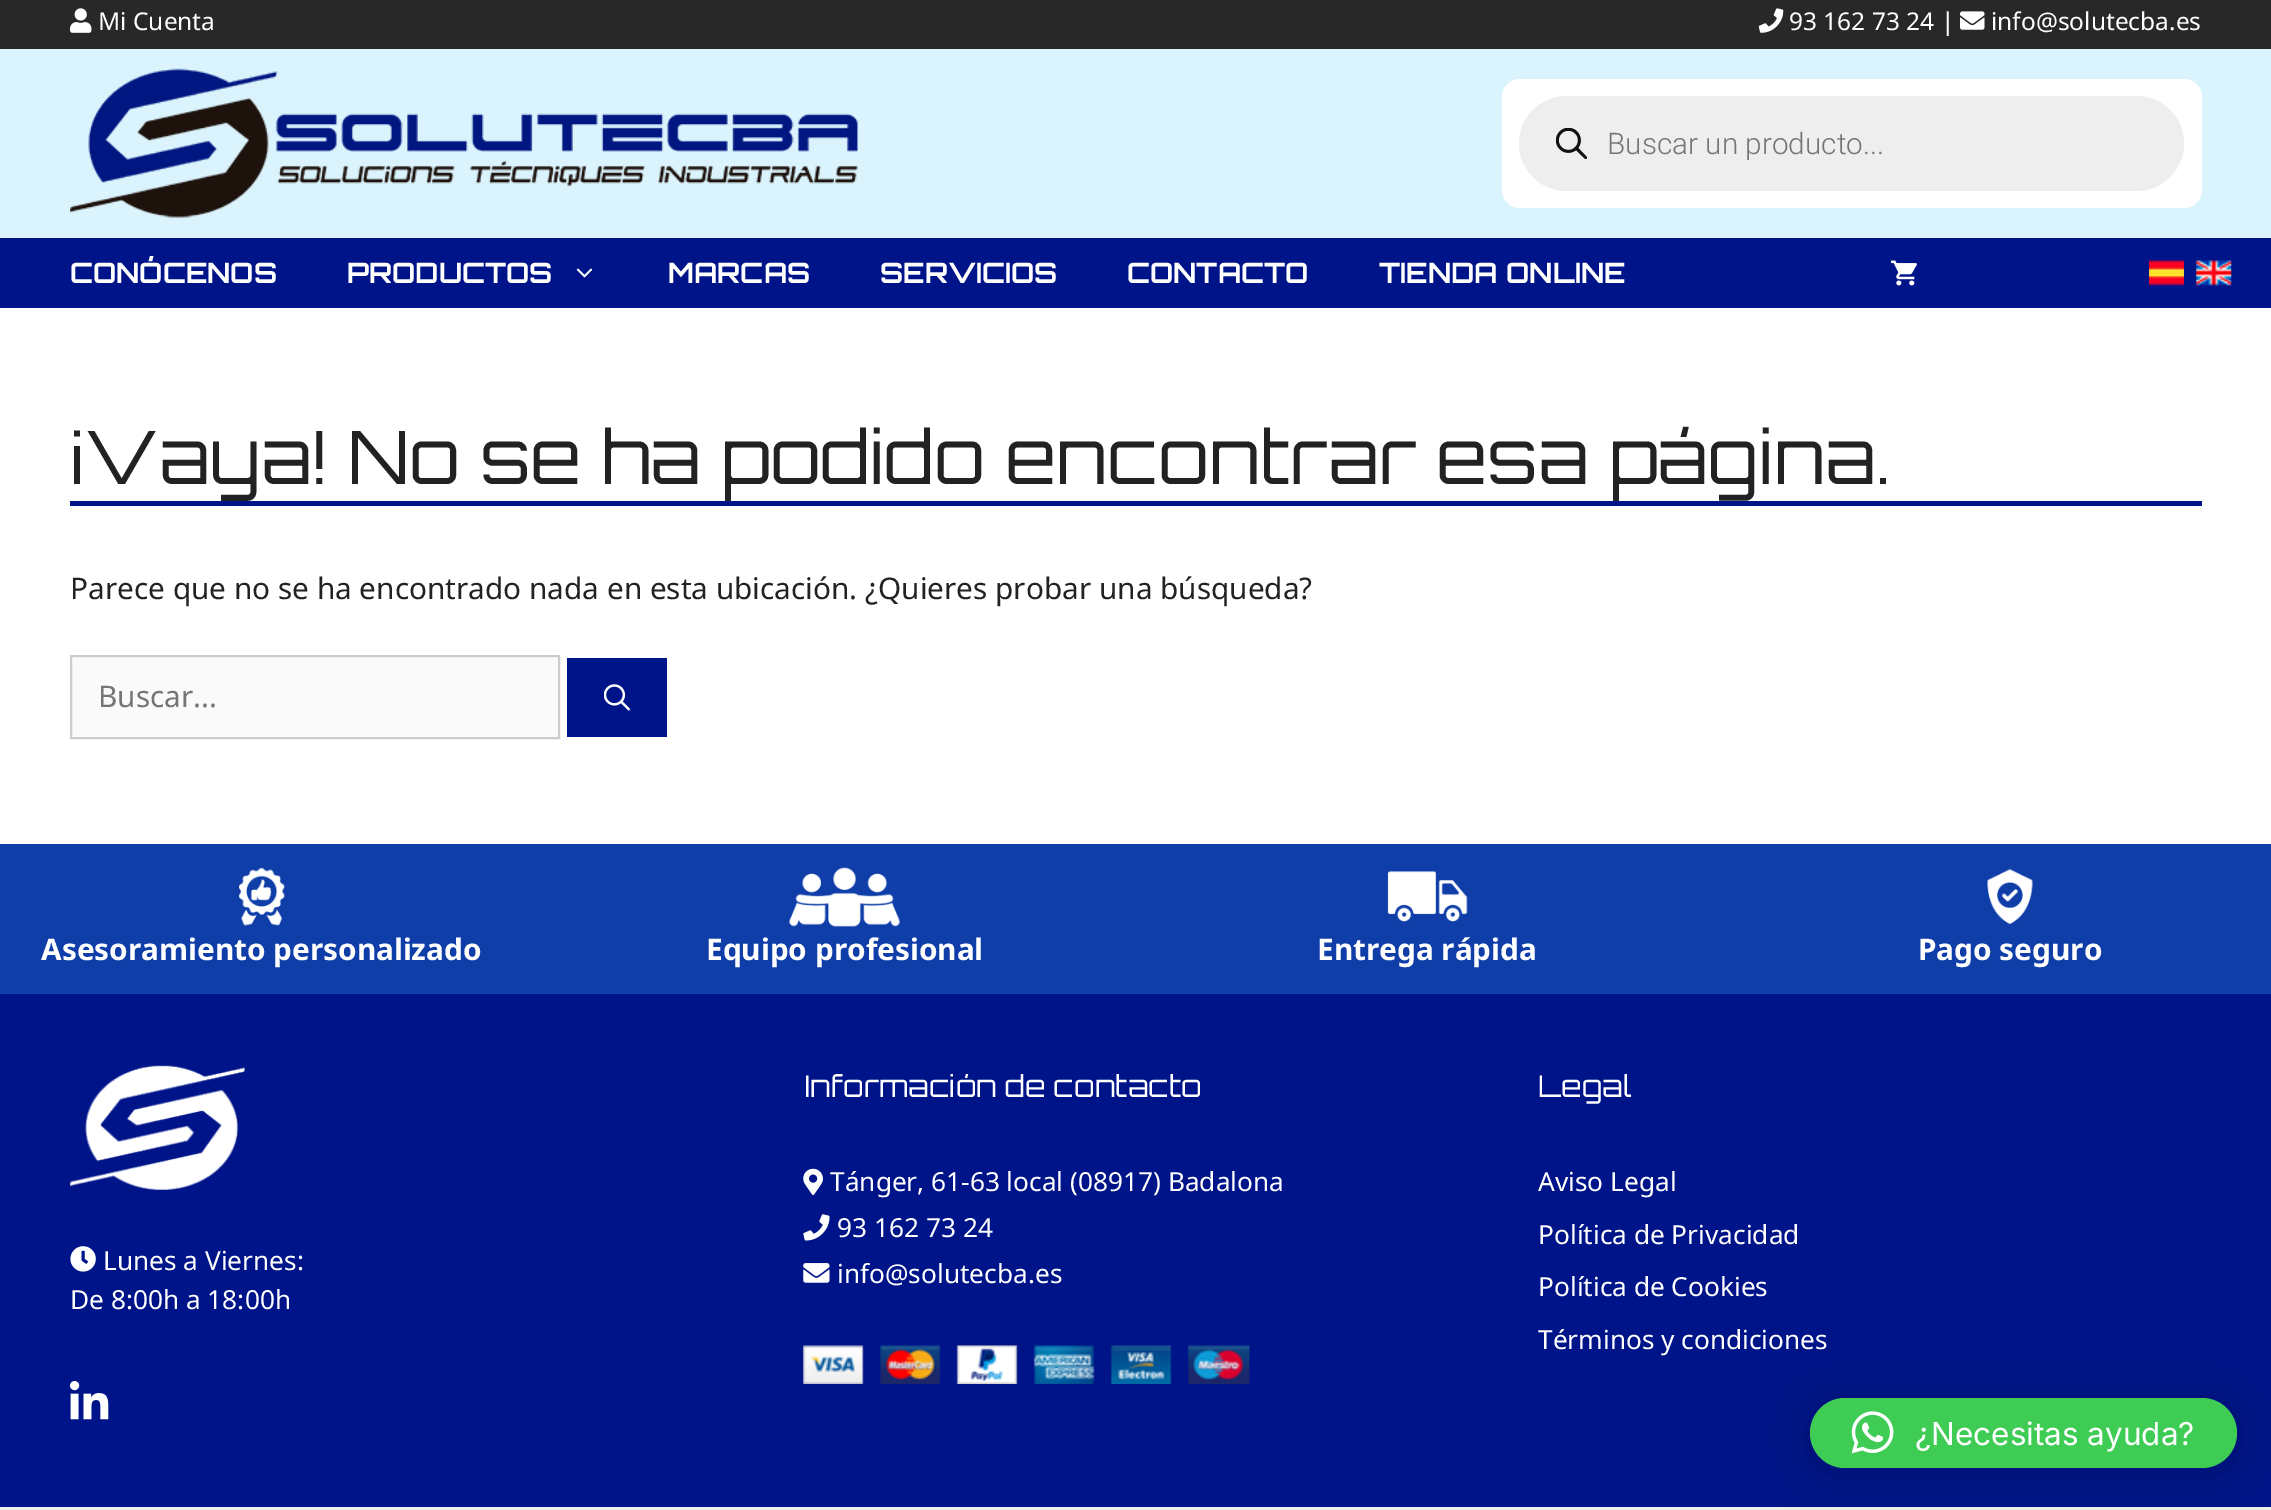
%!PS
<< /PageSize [2271 1510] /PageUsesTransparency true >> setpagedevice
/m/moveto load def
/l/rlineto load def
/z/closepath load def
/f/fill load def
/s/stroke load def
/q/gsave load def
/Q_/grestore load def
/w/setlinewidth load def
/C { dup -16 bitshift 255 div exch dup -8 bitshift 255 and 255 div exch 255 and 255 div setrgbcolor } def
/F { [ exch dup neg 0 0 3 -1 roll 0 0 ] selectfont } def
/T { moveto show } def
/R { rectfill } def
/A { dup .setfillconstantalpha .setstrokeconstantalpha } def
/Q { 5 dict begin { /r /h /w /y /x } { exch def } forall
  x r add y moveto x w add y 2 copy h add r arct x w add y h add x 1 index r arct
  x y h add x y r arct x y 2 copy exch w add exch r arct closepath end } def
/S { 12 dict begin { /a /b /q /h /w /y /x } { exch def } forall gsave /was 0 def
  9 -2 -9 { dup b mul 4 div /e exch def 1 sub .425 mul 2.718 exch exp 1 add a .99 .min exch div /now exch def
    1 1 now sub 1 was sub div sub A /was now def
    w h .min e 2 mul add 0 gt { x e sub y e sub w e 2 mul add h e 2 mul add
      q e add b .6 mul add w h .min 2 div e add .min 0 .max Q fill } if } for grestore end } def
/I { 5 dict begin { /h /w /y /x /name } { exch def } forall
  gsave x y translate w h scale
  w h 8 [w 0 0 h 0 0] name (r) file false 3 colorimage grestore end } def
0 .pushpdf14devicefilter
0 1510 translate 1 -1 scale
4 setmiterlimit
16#FFFFFF C
0 0 2271 1510 R
16#282828 C
0 0 2271 49 R
(1.rgb) 70 8 22 25 I
/NotoSans-Regular 24.5 F
16#FFFFFF C
(Mi Cuenta) 98 30 T
(2.rgb) 1758 8 26 25 I
(93 162 73 24 |) 1789 30 T
(3.rgb) 1960 11 25 19 I
(info@solutecba.es) 1991 30 T
16#DAF3FC C
0 49 2271 189 R
(4.rgb) 70 68 788 150 I
16#FFFFFF C
1502 79 700 129 18 Q f
16#EEEEEE C
1519 96 665 95 47.5 Q f
(5.rgb) 1556 128 31 31 I
/Roboto-Light 29.75 F
16#757575 C
(Buscar un producto...) 1607 154 T
16#001489 C
0 238 2271 70 R
/Orbitron-Bold 28 F
16#FFFFFF C
(CONÓCENOS) 70 283 T
(PRODUCTOS) 347 283 T
(6.rgb) 576 268 17 10 I
(MARCAS) 668 283 T
(SERVICIOS) 880 283 T
(CONTACTO) 1127 283 T
(TIENDA ONLINE) 1379 283 T
(7.rgb) 1891 260 26 26 I
(8.rgb) 2149 260 35 26 I
(9.rgb) 2196 260 36 26 I
16#001489 C
70 501 2132 5 R
/Orbitron-Regular 73.5 F
16#222222 C
(¡Vaya! No se ha podido encontrar esa página.) 70 484 T
/NotoSans-Regular 29.75 F
(Parece que no se ha encontrado nada en esta ubicación. ¿Quieres probar una búsqueda?) 70 599 T
16#FAFAFA C
71 656 m 488 0 l 0 82 l -488 0 l z q f Q_
16#CCCCCC C
2 w
s
16#757575 C
(Buscar...) 98 707 T
16#001489 C
567 658 100 79 R
(10.rgb) 604 684 26 27 I
16#0F3EA9 C
0 844 2271 150 R
(11.rgb) 239 867 46 59 I
/NotoSans-Bold 29.75 F
16#FFFFFF C
(Asesoramiento personalizado) 41 960 T
(12.rgb) 789 867 111 60 I
(Equipo profesional) 706 960 T
(13.rgb) 1387 871 81 51 I
(Entrega rápida) 1317 960 T
(14.rgb) 1987 868 46 57 I
(Pago seguro) 1918 960 T
16#001489 C
0 994 2271 513 R
(15.rgb) 70 1065 175 125 I
(16.rgb) 70 1246 26 26 I
/NotoSans-Regular 26.25 F
16#FFFFFF C
(Lunes a Viernes:) 103 1270 T
(De 8:00h a 18:00h) 70 1309 T
(17.rgb) 70 1381 39 39 I
/Orbitron-Regular 29.75 F
(Información de contacto) 804 1097 T
(18.rgb) 803 1168 20 27 I
/NotoSans-Regular 26.25 F
(Tánger, 61-63 local \(08917\) Badalona) 830 1191 T
(19.rgb) 803 1214 27 27 I
(93 162 73 24) 837 1237 T
(20.rgb) 803 1263 27 20 I
(info@solutecba.es) 837 1283 T
(21.rgb) 803 1345 447 39 I
/Orbitron-Regular 29.75 F
(Legal) 1538 1097 T
/NotoSans-Regular 26.25 F
(Aviso Legal) 1538 1191 T
(Política de Privacidad) 1538 1244 T
(Política de Cookies) 1538 1296 T
(Términos y condiciones) 1538 1349 T
16#EFEFEF C
0 1507 2271 3 R
16#000000 C
1810 1402 427 70 35 28 .16 S
16#3FCC54 C
1810 1398 427 70 35 Q f
(22.rgb) 1851 1411 43 43 I
/Inter-Regular 31.5 F
16#FFFFFF C
(¿Necesitas ayuda?) 1915 1445 T
.poppdf14devicefilter showpage
